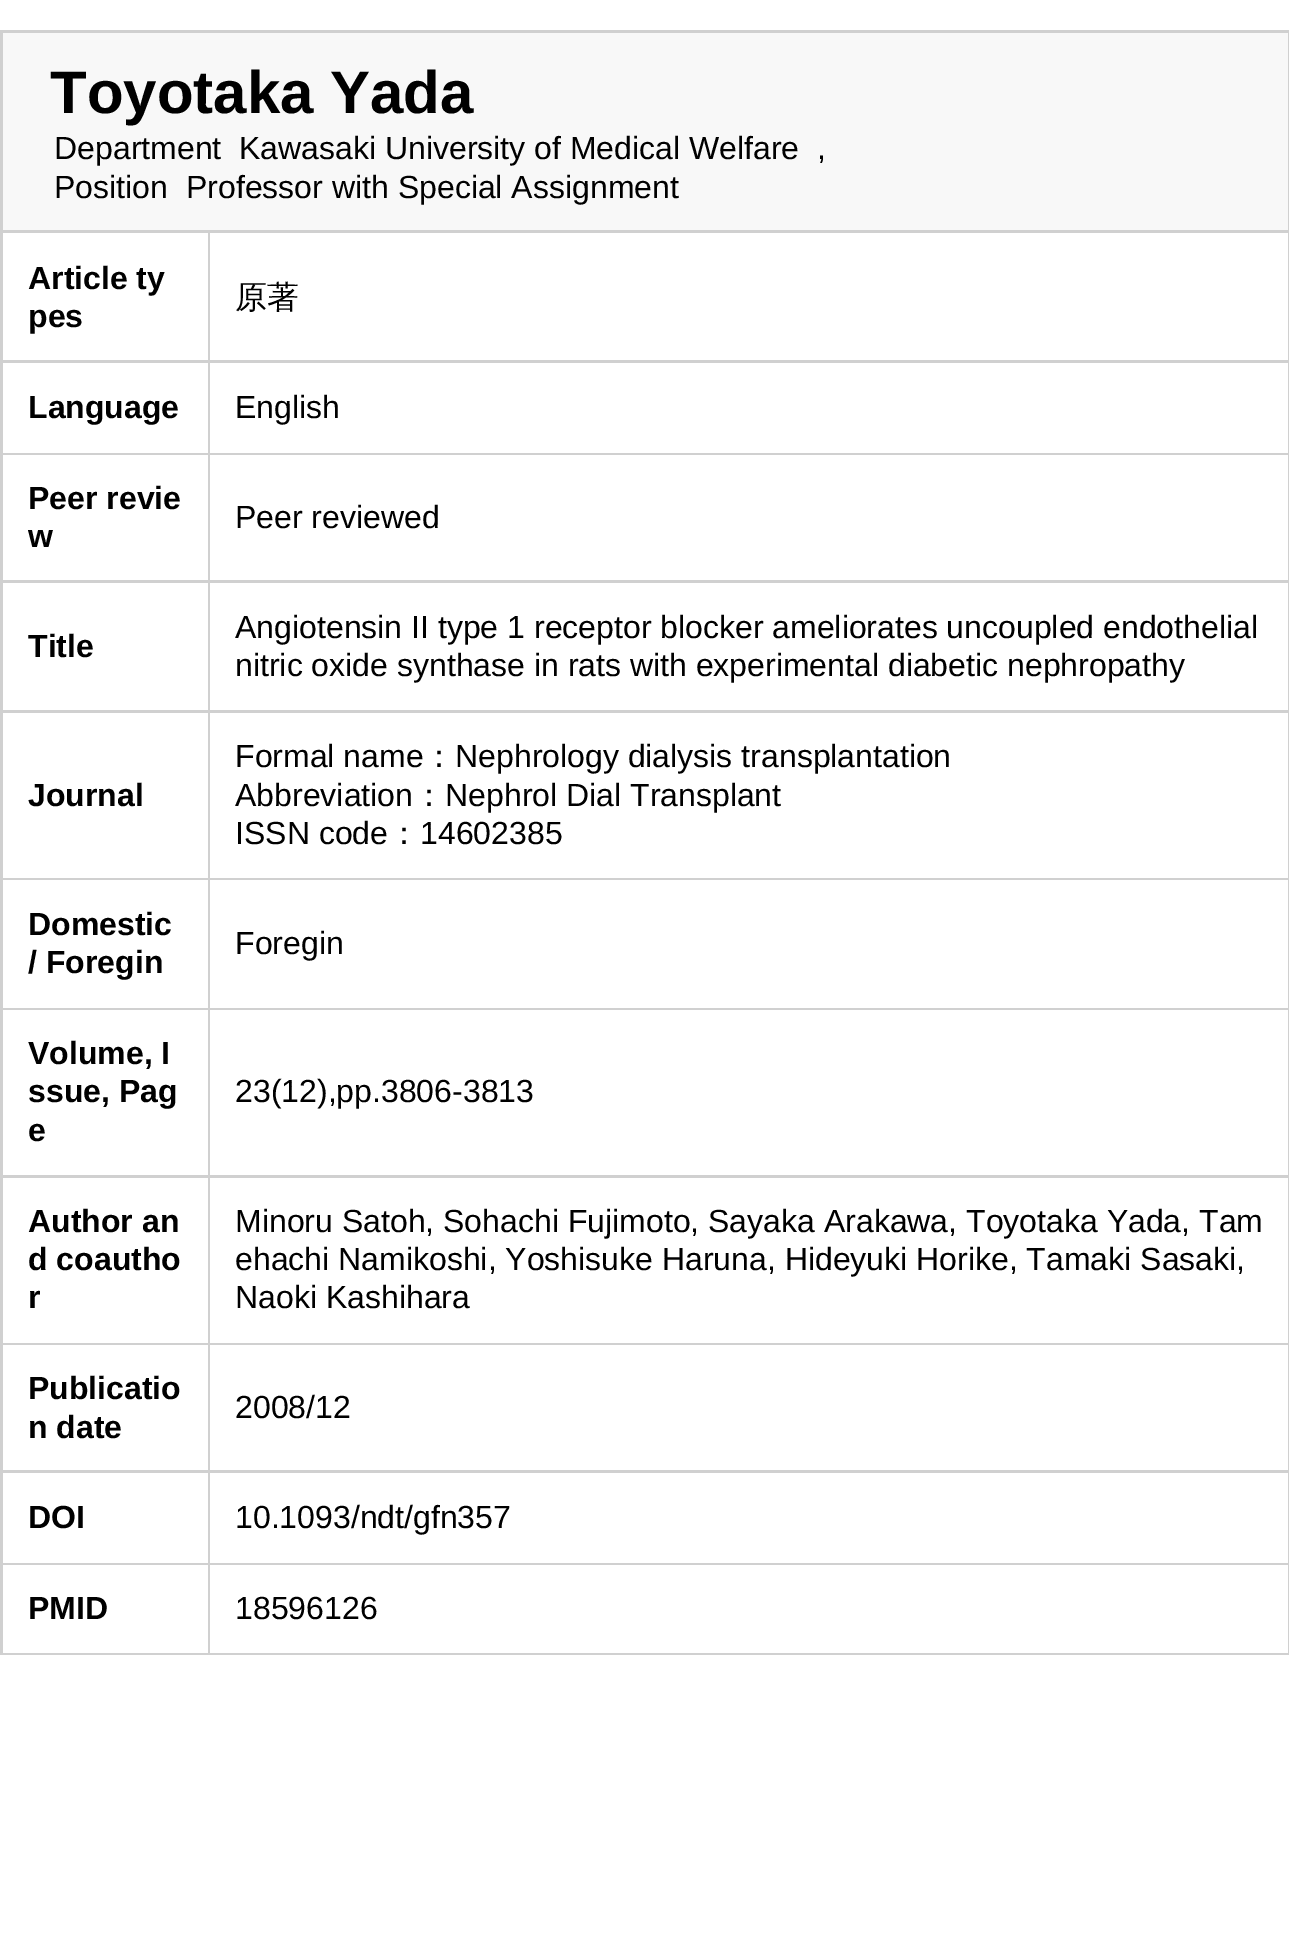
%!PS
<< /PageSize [1289 1948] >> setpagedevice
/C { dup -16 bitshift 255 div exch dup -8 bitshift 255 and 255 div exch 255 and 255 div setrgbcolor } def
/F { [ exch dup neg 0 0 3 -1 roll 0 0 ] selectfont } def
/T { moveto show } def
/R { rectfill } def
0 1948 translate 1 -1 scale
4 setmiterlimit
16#FFFFFF C
0 0 1289 1948 R
16#D0D0D0 C
0 30 1289 1625 R
16#F8F8F8 C
3 33 1285 197 R
/LiberationSans-Bold 60 F
16#000000 C
(Toyotaka Yada) 50 113 T
/LiberationSans-Regular 32 F
(Department) 54 159 T
(Kawasaki University of Medical Welfare) 239 159 T
(,) 817 159 T
(Position) 54 198 T
(Professor with Special Assignment) 186 198 T
16#FFFFFF C
3 233 205 127 R
/LiberationSans-Bold 32 F
16#000000 C
(Article ty) 28 289 T
(pes) 28 327 T
16#FFFFFF C
210 233 1078 127 R
/WenQuanYiZenHei-Medium 32 F
16#000000 C
(原著) 235 308 T
16#FFFFFF C
3 363 205 90 R
/LiberationSans-Bold 32 F
16#000000 C
(Language) 28 418 T
16#FFFFFF C
210 363 1078 90 R
/LiberationSans-Regular 32 F
16#000000 C
(English) 235 418 T
16#FFFFFF C
3 455 205 125 R
/LiberationSans-Bold 32 F
16#000000 C
(Peer revie) 28 509 T
(w) 28 547 T
16#FFFFFF C
210 455 1078 125 R
/LiberationSans-Regular 32 F
16#000000 C
(Peer reviewed) 235 528 T
16#FFFFFF C
3 583 205 127 R
/LiberationSans-Bold 32 F
16#000000 C
(Title) 28 657 T
16#FFFFFF C
210 583 1078 127 R
/LiberationSans-Regular 32 F
16#000000 C
(Angiotensin II type 1 receptor blocker ameliorates uncoupled endothelial) 235 638 T
(nitric oxide synthase in rats with experimental diabetic nephropathy) 235 676 T
16#FFFFFF C
3 713 205 165 R
/LiberationSans-Bold 32 F
16#000000 C
(Journal) 28 806 T
16#FFFFFF C
210 713 1078 165 R
/LiberationSans-Regular 32 F
16#000000 C
(Formal name) 235 767 T
/WenQuanYiZenHei-Medium 32 F
(：) 423 767 T
/LiberationSans-Regular 32 F
(Nephrology dialysis transplantation) 455 767 T
(Abbreviation) 235 806 T
/WenQuanYiZenHei-Medium 32 F
(：) 413 806 T
/LiberationSans-Regular 32 F
(Nephrol Dial Transplant) 445 806 T
(ISSN code) 235 844 T
/WenQuanYiZenHei-Medium 32 F
(：) 388 844 T
/LiberationSans-Regular 32 F
(14602385) 420 844 T
16#FFFFFF C
3 880 205 128 R
/LiberationSans-Bold 32 F
16#000000 C
(Domestic) 28 935 T
(/ Foregin) 28 973 T
16#FFFFFF C
210 880 1078 128 R
/LiberationSans-Regular 32 F
16#000000 C
(Foregin) 235 954 T
16#FFFFFF C
3 1010 205 165 R
/LiberationSans-Bold 32 F
16#000000 C
(Volume, I) 28 1064 T
(ssue, Pag) 28 1102 T
(e) 28 1141 T
16#FFFFFF C
210 1010 1078 165 R
/LiberationSans-Regular 32 F
16#000000 C
(23\(12\),pp.3806-3813) 235 1102 T
16#FFFFFF C
3 1178 205 165 R
/LiberationSans-Bold 32 F
16#000000 C
(Author an) 28 1232 T
(d coautho) 28 1270 T
(r) 28 1308 T
16#FFFFFF C
210 1178 1078 165 R
/LiberationSans-Regular 32 F
16#000000 C
(Minoru Satoh, Sohachi Fujimoto, Sayaka Arakawa, Toyotaka Yada, Tam) 235 1232 T
(ehachi Namikoshi, Yoshisuke Haruna, Hideyuki Horike, Tamaki Sasaki,) 235 1270 T
(Naoki Kashihara) 235 1308 T
16#FFFFFF C
3 1345 205 125 R
/LiberationSans-Bold 32 F
16#000000 C
(Publicatio) 28 1399 T
(n date) 28 1438 T
16#FFFFFF C
210 1345 1078 125 R
/LiberationSans-Regular 32 F
16#000000 C
(2008/12) 235 1418 T
16#FFFFFF C
3 1473 205 90 R
/LiberationSans-Bold 32 F
16#000000 C
(DOI) 28 1528 T
16#FFFFFF C
210 1473 1078 90 R
/LiberationSans-Regular 32 F
16#000000 C
(10.1093/ndt/gfn357) 235 1528 T
16#FFFFFF C
3 1565 205 88 R
/LiberationSans-Bold 32 F
16#000000 C
(PMID) 28 1619 T
16#FFFFFF C
210 1565 1078 88 R
/LiberationSans-Regular 32 F
16#000000 C
(18596126) 235 1619 T
showpage
